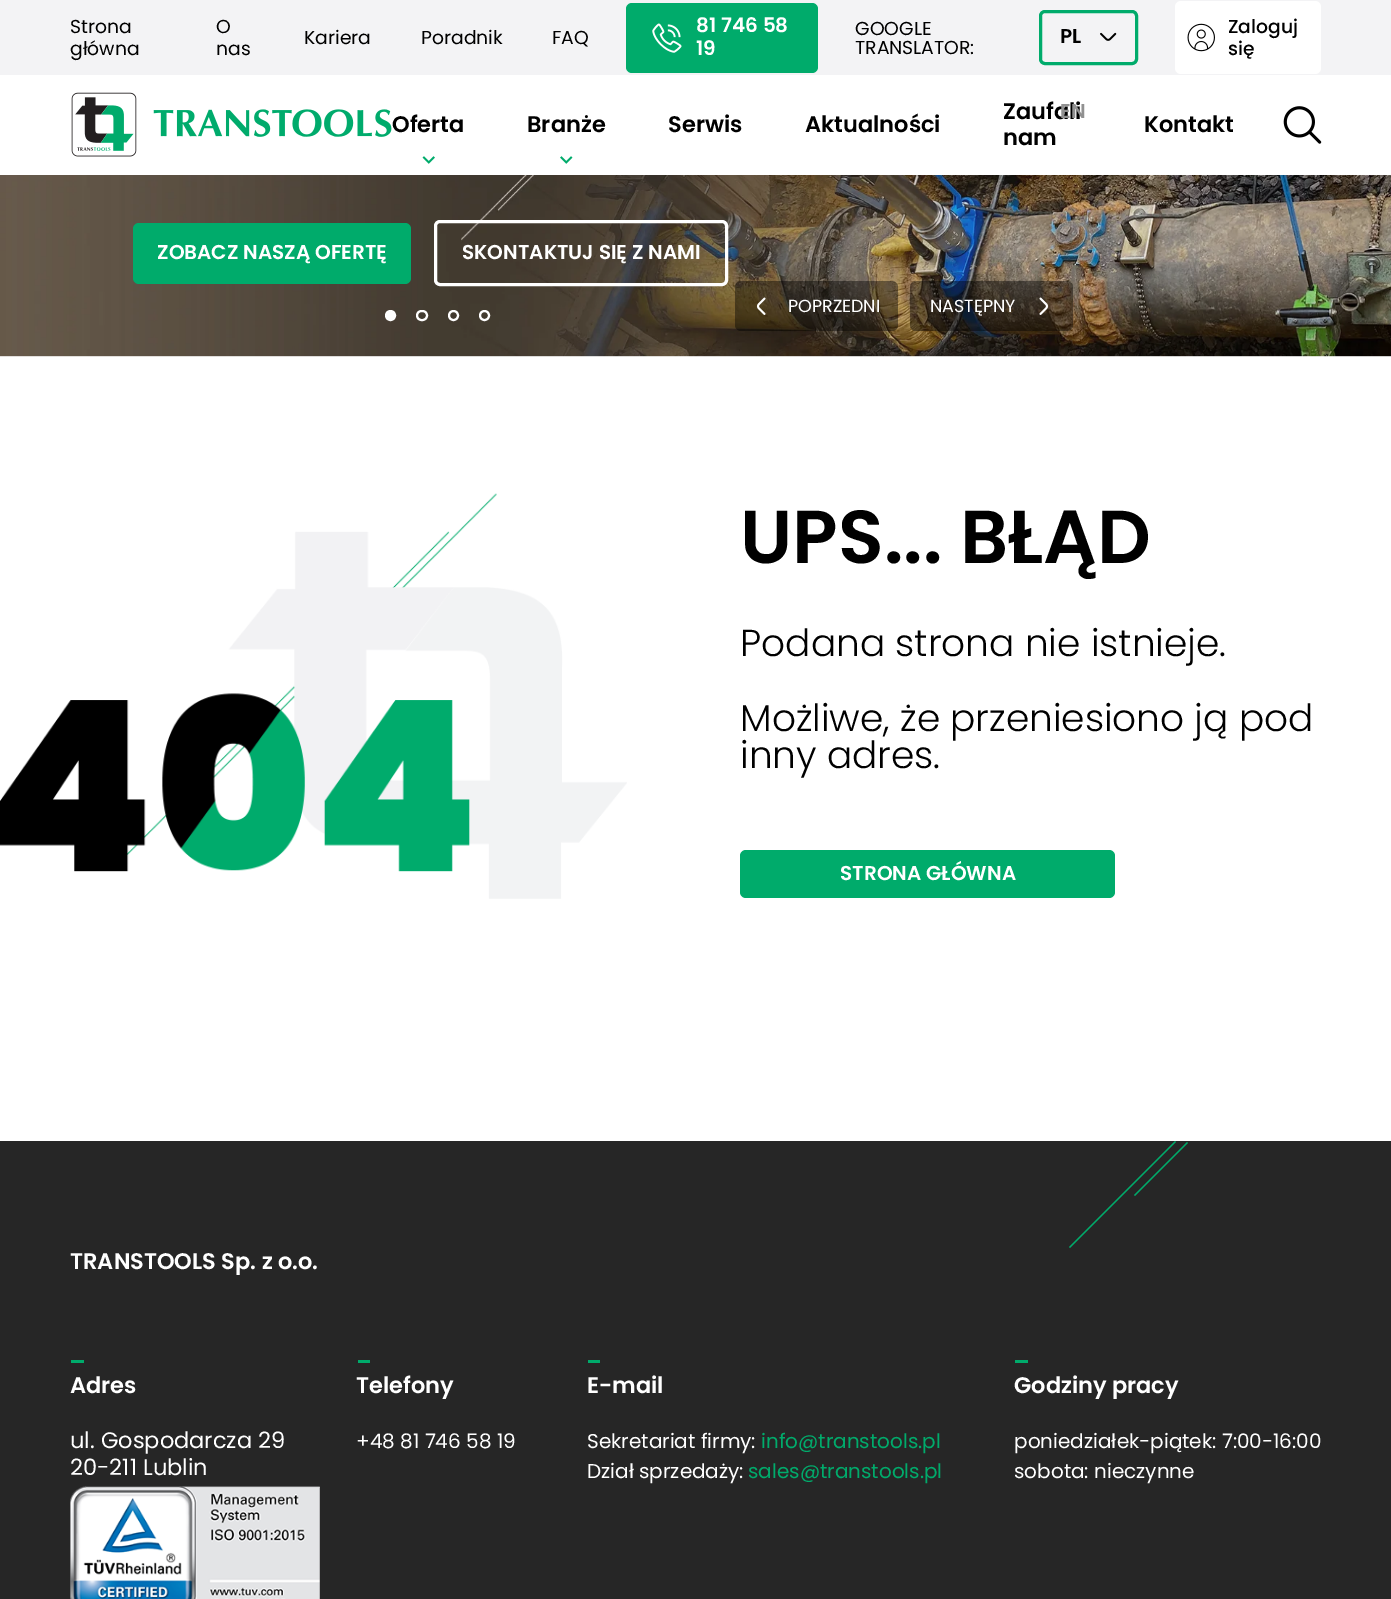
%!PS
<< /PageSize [1391 1599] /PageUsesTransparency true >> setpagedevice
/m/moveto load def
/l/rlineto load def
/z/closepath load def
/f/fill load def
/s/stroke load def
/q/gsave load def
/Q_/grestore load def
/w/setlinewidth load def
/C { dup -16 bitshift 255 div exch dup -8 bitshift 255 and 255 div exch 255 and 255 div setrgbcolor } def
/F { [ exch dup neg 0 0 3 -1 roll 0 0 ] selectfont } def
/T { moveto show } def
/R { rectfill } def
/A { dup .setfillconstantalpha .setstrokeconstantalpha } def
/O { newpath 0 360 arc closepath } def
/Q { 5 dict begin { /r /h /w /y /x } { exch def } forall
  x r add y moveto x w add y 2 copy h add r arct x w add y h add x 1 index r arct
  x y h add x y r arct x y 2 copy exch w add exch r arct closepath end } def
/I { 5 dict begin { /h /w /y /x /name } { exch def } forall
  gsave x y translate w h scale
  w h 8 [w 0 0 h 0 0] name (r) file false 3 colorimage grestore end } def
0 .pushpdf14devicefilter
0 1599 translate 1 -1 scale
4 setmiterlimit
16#FFFFFF C
0 0 1391 1599 R
16#F3F3F5 C
0 0 1391 75 R
/Poppins-Regular 18.75 F
16#000000 C
(Strona) 70 33 T
(główna) 70 55 T
(O) 216 33 T
(nas) 216 55 T
(Kariera) 304 44 T
(Poradnik) 421 44 T
(FAQ) 552 44 T
16#00AB6B C
626 3 192 70 6 Q f
(1.rgb) 652 23 30 30 I
/Poppins-SemiBold 20 F
16#FFFFFF C
(81 746 58) 696 32 T
(19) 696 55 T
/Poppins-Regular 18.75 F
16#000000 C
(GOOGLE) 855 35 T
(TRANSLATOR:) 855 54 T
16#00AB6B C
3 w
1040.5 11.5 96 52 4.5 Q s
/Poppins-SemiBold 20 F
16#000000 C
(PL) 1060 43 T
(2.rgb) 1100 32 17 9 I
/Poppins-SemiBold 22.5 F
(Zaufali) 1003 119 T
/Poppins-SemiBold 20 F
16#919191 C
(EN) 1060 118 T
16#FFFFFF C
1175 1 146 73 6 Q f
(3.rgb) 1187 23 28 29 I
/Poppins-Medium 18.75 F
16#000000 C
(Zaloguj) 1228 33 T
(się) 1228 55 T
(4.rgb) 71 92 321 65 I
/Poppins-SemiBold 22.5 F
(Oferta) 392 132 T
(5.rgb) 422 156 13 8 I
(Branże) 527 132 T
(6.rgb) 560 156 13 8 I
(Serwis) 668 132 T
(Aktualności) 805 132 T
(nam) 1003 145 T
(Kontakt) 1144 132 T
(7.rgb) 1283 106 39 38 I
(8.rgb) 0 175 1391 182 I
16#00AB6B C
133 223 278 61 6 Q f
/Poppins-SemiBold 20 F
16#FFFFFF C
(ZOBACZ NASZĄ OFERTĘ) 157 259 T
435.5 221.5 291 63 4.5 Q s
(SKONTAKTUJ SIĘ Z NAMI) 462 259 T
390.5 315.5 4.5 O q f Q_
2 w
s
417 311 10 9 4.5 Q s
453.5 315.5 4.5 O s
484.5 315.5 4.5 O s
0.42 A
16#000000 C
735 281 163 50 6 Q f
1 A
(9.rgb) 756 297 10 18 I
/Poppins-Regular 17.5 F
16#FFFFFF C
(POPRZEDNI) 788 312 T
0.42 A
16#000000 C
910 281 163 50 6 Q f
1 A
16#FFFFFF C
(NASTĘPNY) 930 312 T
(10.rgb) 1039 297 10 18 I
(11.rgb) 0 493 627 406 I
/Poppins-SemiBold 75 F
16#000000 C
(UPS... BŁĄD) 740 563 T
/Poppins-Light 37.5 F
(Podana strona nie istnieje.) 740 656 T
(Możliwe, że przeniesiono ją pod) 740 731 T
(inny adres.) 740 768 T
16#00AB6B C
740 850 375 48 6 Q f
/Poppins-SemiBold 20 F
16#FFFFFF C
(STRONA GŁÓWNA) 840 880 T
16#262626 C
0 1141 1391 458 R
16#00AB6B C
1188 1143 m -53 53 l -1 -1 l 53 -53 l z f
1176 1142 m -106 106 l -1 -1 l 106 -106 l z f
/Poppins-SemiBold 22.5 F
16#FFFFFF C
(TRANSTOOLS Sp. z o.o.) 70 1269 T
16#00AB6B C
71 1360 13 3 R
16#FFFFFF C
(Adres) 70 1393 T
/Poppins-Regular 22.5 F
(ul. Gospodarcza 29) 70 1448 T
(20-211 Lublin) 70 1475 T
16#00AB6B C
358 1360 12 3 R
/Poppins-SemiBold 22.5 F
16#FFFFFF C
(Telefony) 356 1393 T
/Poppins-Regular 20 F
(+48 81 746 58 19) 356 1448 T
16#00AB6B C
588 1360 12 3 R
/Poppins-SemiBold 22.5 F
16#FFFFFF C
(E-mail) 587 1393 T
/Poppins-Regular 20 F
(Sekretariat firmy:) 587 1448 T
16#00AB6B C
(info@transtools.pl) 761 1448 T
16#FFFFFF C
(Dział sprzedaży:) 587 1478 T
16#00AB6B C
(sales@transtools.pl) 748 1478 T
1015 1360 13 3 R
/Poppins-SemiBold 22.5 F
16#FFFFFF C
(Godziny pracy) 1014 1393 T
/Poppins-Regular 20 F
(poniedziałek-piątek: 7:00-16:00) 1014 1448 T
(sobota: nieczynne) 1014 1478 T
(12.rgb) 70 1486 250 113 I
.poppdf14devicefilter showpage
